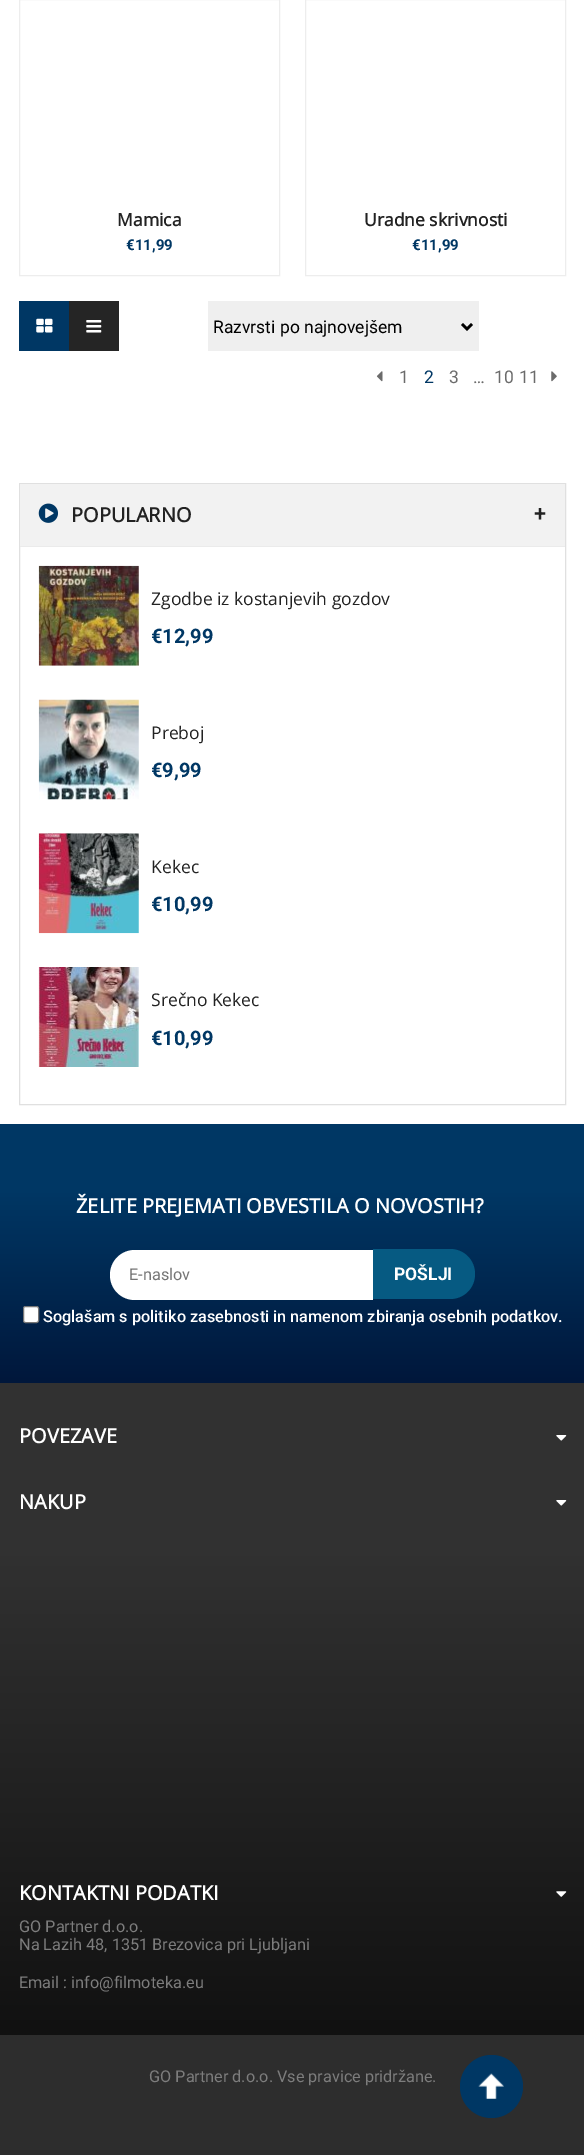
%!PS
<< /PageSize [584 2155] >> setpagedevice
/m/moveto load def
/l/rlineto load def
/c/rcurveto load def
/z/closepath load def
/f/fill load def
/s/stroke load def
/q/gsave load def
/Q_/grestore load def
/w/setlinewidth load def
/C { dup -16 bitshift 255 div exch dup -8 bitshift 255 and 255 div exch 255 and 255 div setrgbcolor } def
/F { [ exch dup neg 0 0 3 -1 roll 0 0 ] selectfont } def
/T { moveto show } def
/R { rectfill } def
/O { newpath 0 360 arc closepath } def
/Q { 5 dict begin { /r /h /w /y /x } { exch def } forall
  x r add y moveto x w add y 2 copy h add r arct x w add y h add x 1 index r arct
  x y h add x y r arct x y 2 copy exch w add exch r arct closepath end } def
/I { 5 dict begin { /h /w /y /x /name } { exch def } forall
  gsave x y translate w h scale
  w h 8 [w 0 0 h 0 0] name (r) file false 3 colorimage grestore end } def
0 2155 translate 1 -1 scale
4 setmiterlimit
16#FFFFFF C
0 0 584 2155 R
16#EDEDED C
19.5 -.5 260 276 rectstroke
/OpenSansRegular-Bold 17.5 F
16#222222 C
(Mamica) 117 226 T
/Roboto-Bold 15 F
16#003764 C
(€11,99) 126 250 T
16#EDEDED C
305.5 -.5 260 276 rectstroke
/OpenSansRegular-Bold 17.5 F
16#222222 C
(Uradne skrivnosti) 364 226 T
/Roboto-Bold 15 F
16#003764 C
(€11,99) 412 250 T
19 301 50 50 R
(1.rgb) 36 318 17 15 I
16#252525 C
69 301 50 50 R
(2.rgb) 86 320 16 13 I
16#EFEFEF C
208 301 271 50 R
16#000000 C
2.5 w
462 324 m 5 5 l 5 -5 l s
/Roboto-Regular 17.5 F
(Razvrsti po najnovejšem) 213 333 T
(3.rgb) 376 371 7 11 I
16#6B6B6B C
(1) 399 383 T
16#003764 C
(2) 424 383 T
16#6B6B6B C
(3) 449 383 T
(10) 494 383 T
(11) 519 383 T
(4.rgb) 551 371 6 11 I
(…) 473 383 T
16#E0E0E0 C
1 w
19.5 483.5 546 621 rectstroke
16#F2F2F2 C
20 484 545 62 R
(5.rgb) 38 503 20 20 I
/OpenSansRegular-Bold 20 F
16#222222 C
(POPULARNO) 71 522 T
/Roboto-SemiBold 22 F
(+) 534 521 T
16#EBEBEB C
20 546 545 1 R
(6.rgb) 38 565 101 101 I
/OpenSansRegular-Regular 17.5 F
16#222222 C
(Zgodbe iz kostanjevih gozdov) 151 605 T
/Roboto-Bold 20 F
16#003764 C
(€12,99) 151 643 T
(7.rgb) 38 699 101 101 I
/OpenSansRegular-Regular 17.5 F
16#222222 C
(Preboj) 151 739 T
/Roboto-Bold 20 F
16#003764 C
(€9,99) 151 777 T
(8.rgb) 38 833 101 101 I
/OpenSansRegular-Regular 17.5 F
16#222222 C
(Kekec) 151 873 T
/Roboto-Bold 20 F
16#003764 C
(€10,99) 151 911 T
(9.rgb) 38 967 101 100 I
/OpenSansRegular-Regular 17.5 F
16#222222 C
(Srečno Kekec) 151 1006 T
/Roboto-Bold 20 F
16#003764 C
(€10,99) 151 1045 T
q 0 1124 m 584 0 l 0 259 l -584 0 l z clip newpath
<< /ShadingType 2 /ColorSpace /DeviceRGB /Coords [293 1383 293 1124] /Extend [true true] /Function << /FunctionType 3 /Domain [0 1] /Functions [<< /FunctionType 2 /Domain [0 1] /C0 [0 .09 .231] /C1 [0 .216 .392] /N 1 >> << /FunctionType 2 /Domain [0 1] /C0 [0 .216 .392] /C1 [0 .216 .392] /N 1 >>] /Bounds [.74] /Encode [0 1 0 1] >> >> shfill Q_
/OpenSansRegular-Bold 20 F
16#FFFFFF C
(ŽELITE PREJEMATI OBVESTILA O NOVOSTIH?) 76 1213 T
135 1250 m 238 0 l 0 50 l -238 0 l -14 0 -25 -11 -25 -25 c 0 -14 11 -25 25 -25 c z f
/Roboto-Regular 16.25 F
16#757575 C
(E-naslov) 129 1280 T
16#065A82 C
373 1249 m 77 0 l 14 0 25 11 25 25 c 0 14 -11 25 -25 25 c -77 0 l z f
/Roboto-Bold 17.5 F
16#FFFFFF C
(POŠLJI) 394 1280 T
23.5 1306.5 15 16 2 Q q f Q_
16#767676 C
s
/Roboto-Medium 16.25 F
16#FFFFFF C
(Soglašam s politiko zasebnosti in namenom zbiranja osebnih podatkov.) 43 1322 T
q 0 1383 m 584 0 l 0 652 l -584 0 l z clip newpath
<< /ShadingType 2 /ColorSpace /DeviceRGB /Coords [293 2035 293 1383] /Extend [true true] /Function << /FunctionType 3 /Domain [0 1] /Functions [<< /FunctionType 2 /Domain [0 1] /C0 [.067 .067 .067] /C1 [.192 .192 .192] /N 1 >> << /FunctionType 2 /Domain [0 1] /C0 [.192 .192 .192] /C1 [.192 .192 .192] /N 1 >>] /Bounds [.74] /Encode [0 1 0 1] >> >> shfill Q_
/OpenSansRegular-Bold 20 F
(POVEZAVE) 19 1443 T
(10.rgb) 556 1435 11 6 I
(NAKUP) 19 1509 T
(10.rgb) 556 1500 11 6 I
(KONTAKTNI PODATKI) 19 1900 T
(11.rgb) 556 1891 11 6 I
/Roboto-Regular 16.25 F
16#7D7D7D C
(GO Partner d.o.o.) 19 1932 T
(Na Lazih 48, 1351 Brezovica pri Ljubljani) 19 1950 T
(Email : info@filmoteka.eu) 19 1988 T
16#2D2D2D C
0 2035 584 120 R
16#7D7D7D C
(GO Partner d.o.o. Vse pravice pridržane.) 149 2082 T
16#003764 C
491.5 2086.5 31.5 O f
(12.rgb) 478 2073 26 26 I
showpage
